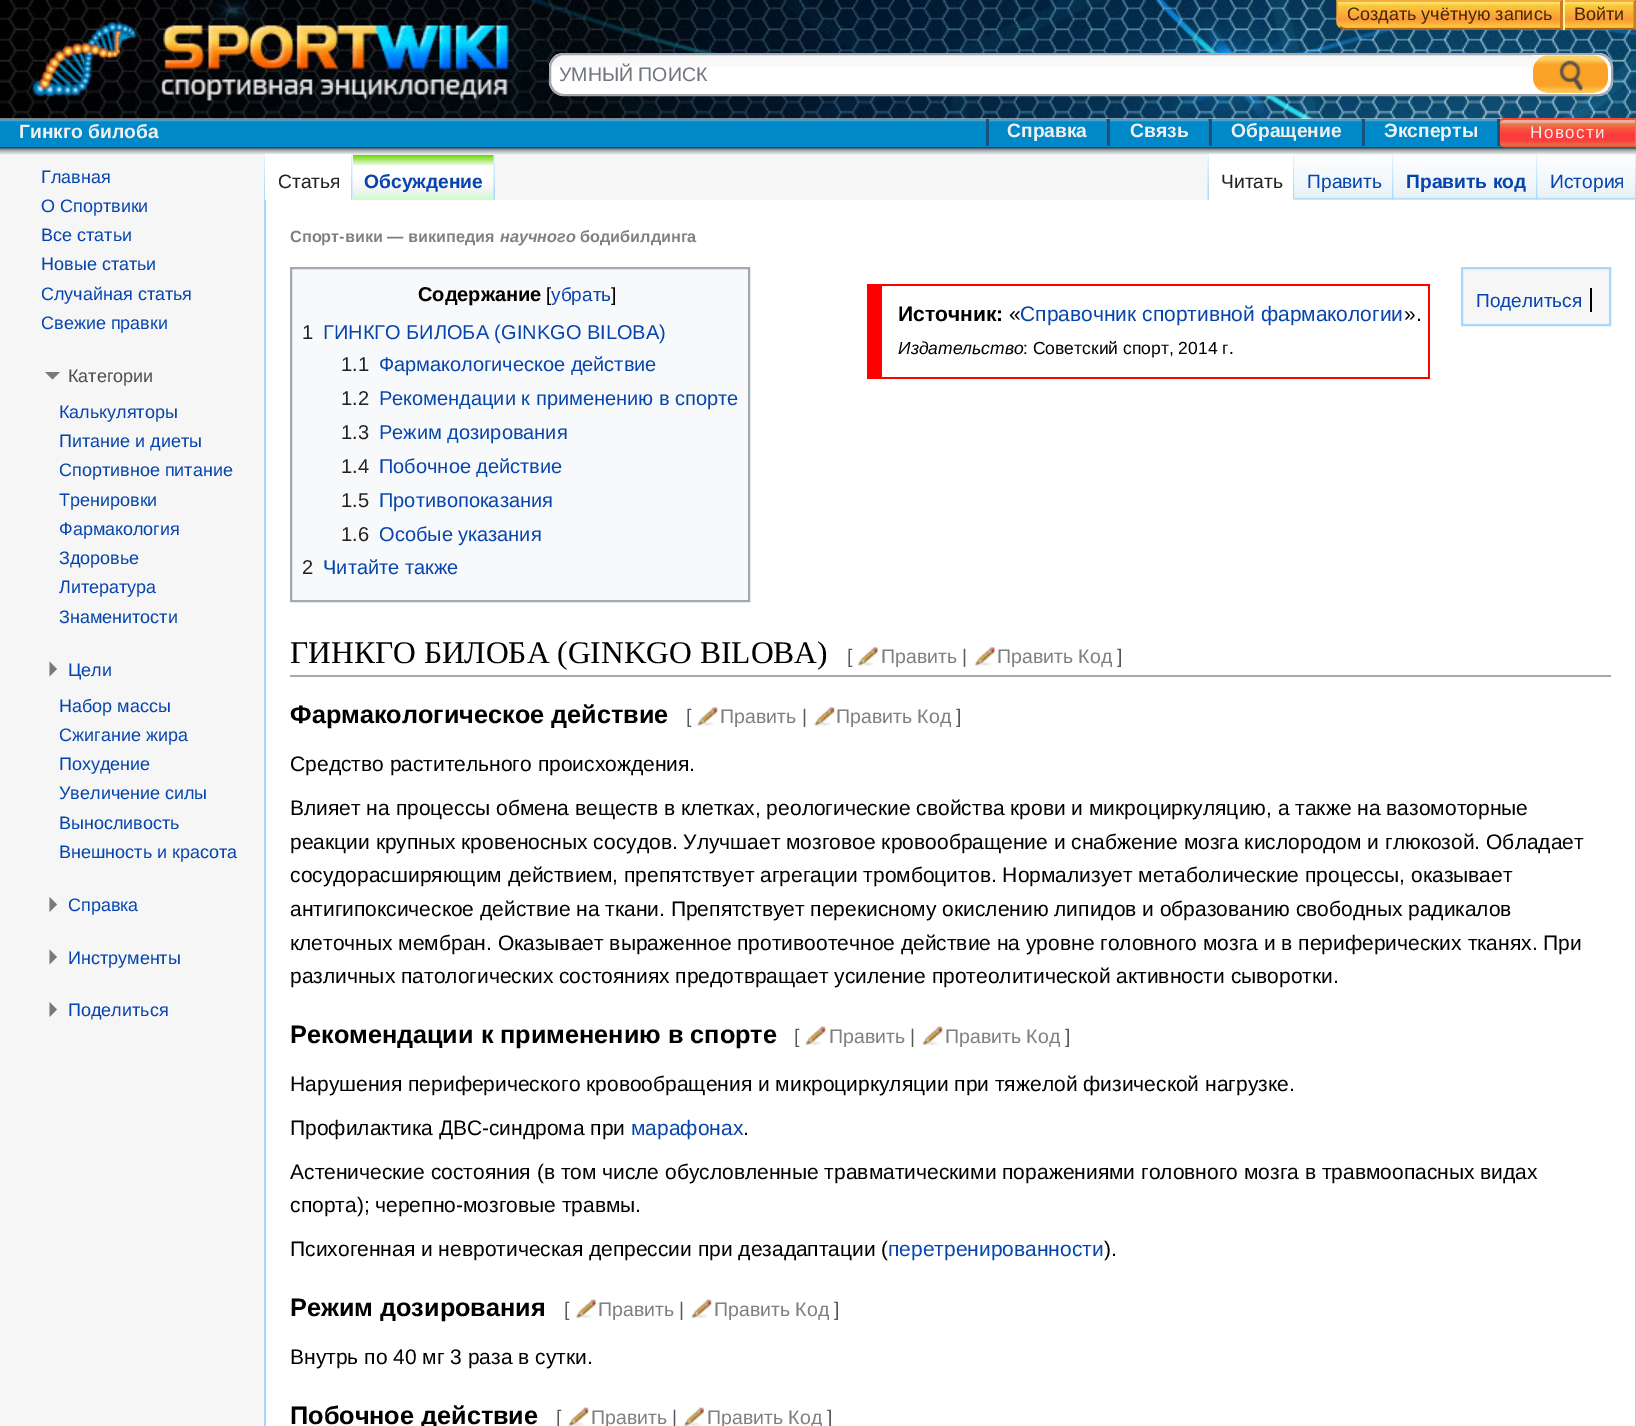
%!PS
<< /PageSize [1636 1426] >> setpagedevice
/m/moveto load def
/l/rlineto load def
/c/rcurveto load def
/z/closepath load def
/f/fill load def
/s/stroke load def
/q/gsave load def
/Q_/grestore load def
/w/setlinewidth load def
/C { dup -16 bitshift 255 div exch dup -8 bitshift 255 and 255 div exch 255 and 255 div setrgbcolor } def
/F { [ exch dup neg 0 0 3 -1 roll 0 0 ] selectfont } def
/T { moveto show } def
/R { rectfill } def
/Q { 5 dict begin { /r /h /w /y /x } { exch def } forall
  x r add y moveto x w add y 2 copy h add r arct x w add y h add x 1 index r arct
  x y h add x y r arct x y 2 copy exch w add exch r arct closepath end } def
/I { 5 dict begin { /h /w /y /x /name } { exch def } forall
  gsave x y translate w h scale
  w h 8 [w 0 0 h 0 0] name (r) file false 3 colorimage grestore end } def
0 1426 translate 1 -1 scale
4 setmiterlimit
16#F6F6F6 C
0 0 1636 1426 R
q 0 118 m 1636 0 l 0 38 l -1636 0 l z clip newpath
<< /ShadingType 2 /ColorSpace /DeviceRGB /Coords [818 52 818 173] /Extend [true true] /Function << /FunctionType 3 /Domain [0 1] /Functions [<< /FunctionType 2 /Domain [0 1] /C0 [1 1 1] /C1 [1 1 1] /N 1 >> << /FunctionType 2 /Domain [0 1] /C0 [1 1 1] /C1 [.965 .965 .965] /N 1 >>] /Bounds [.5] /Encode [0 1 0 1] >> >> shfill Q_
(4.rgb) 0 0 1636 119 I
(1.rgb) 1336 1 225 28 I
16#FAAC37 C
1336 0 m 2 2 l 221 0 l 4 -2 l z f
16#CD7B1F C
1563 0 m -4 2 l 1 0 l 0 26 l -1 0 l 4 2 l z f
16#AC5F17 C
1563 30 m -4 -2 l -213 0 l -2 0 -4 -1 -6 -2 c -1 1 l 2 2 5 3 7 3 c z f
16#FBA83B C
1338 2 m 0 19 l 0 2 1 4 2.5 5 c -1.5 1.5 l -1 -1 -2 -2.5 -2.5 -4 c 0 -23.5 l 2 2 l z f
/LiberationSans-Regular 18 F
16#47260D C
(Создать учётную запись) 1347 20 T
(2.rgb) 1565 1 70 28 I
16#FAAC37 C
1563 0 m 73 0 l -2 2 l -70 0 l z f
16#CD7B1F C
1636.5 0 m 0 30 l -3 -1.5 l 0 -27 l z f
16#AC5F17 C
1636 30 m -73 0 l 1 -2 l 70 0 l z f
16#FEF391 C
1563 0 2 30 R
16#47260D C
(Войти) 1574 20 T
(3.rgb) 0 121 1502 26 I
16#42A0CE C
0 119 1636 2 R
16#13496B C
0 147 1636 2 R
/LiberationSans-Bold 19.25 F
16#F0F0F0 C
(Гинкго билоба) 19 138 T
16#1D7CAF C
1106 119 1 27 R
16#16547F C
986 119 3 27 R
16#F0F0F0 C
(Справка) 1007 137 T
16#1D7CAF C
1208 119 1 27 R
16#16547F C
1107 119 3 27 R
16#F0F0F0 C
(Связь) 1130 137 T
16#1D7CAF C
1361 119 1 27 R
16#16547F C
1209 119 3 27 R
16#F0F0F0 C
(Обращение) 1231 137 T
16#16547F C
1497 119 3 27 R
1362 119 3 27 R
16#F0F0F0 C
(Эксперты) 1384 137 T
(5.rgb) 1500 120 135 27 I
16#F9463B C
1504 120 m -2 0 -4 1 -4 3 c 0 -2 1 -4 3 -5 c 133 0 l -1 2 l z f
16#EC744F C
1635 147 m 0 -27 l 1 -1 l 0 29 l z f
16#8E373C C
1636 148 m -1 -1 l -131 0 l -2 0 -4 -1 -4 -3 c 0 2 2 4 4 4 c z f
/LiberationSans-Regular 17 F
16#F0F0F0 C
1530 138 m 1.5 0 (Новости) ashow
(6.rgb) 0 148 1636 7 I
(7.rgb) 264 154 1 46 I
(8.rgb) 493 154 2 1 I
16#FFFFFF C
265 154 88 46 R
(9.rgb) 351 154 2 46 I
/LiberationSans-Regular 19.25 F
16#222222 C
(Статья) 278 188 T
q 353 155 m 142 0 l 0 45 l -142 0 l z clip newpath
<< /ShadingType 2 /ColorSpace /DeviceRGB /Coords [424 155 424 200] /Extend [true true] /Function << /FunctionType 3 /Domain [0 1] /Functions [<< /FunctionType 2 /Domain [0 1] /C0 [.4 .839 0] /C1 [1 1 1] /N 1 >> << /FunctionType 2 /Domain [0 1] /C0 [1 1 1] /C1 [1 1 1] /N 1 >> << /FunctionType 2 /Domain [0 1] /C0 [1 1 1] /C1 [.961 .961 .961] /N 1 >> << /FunctionType 2 /Domain [0 1] /C0 [.961 .961 .961] /C1 [.8 .984 .808] /N 1 >>] /Bounds [.25 .5 .75] /Encode [0 1 0 1 0 1 0 1] >> >> shfill Q_
(10.rgb) 493 155 2 45 I
/LiberationSans-Bold 19.25 F
16#0645AD C
(Обсуждение) 364 188 T
(11.rgb) 1207 154 2 46 I
(7.rgb) 1635 154 1 46 I
16#FFFFFF C
1209 154 86 46 R
(9.rgb) 1293 154 2 46 I
/LiberationSans-Regular 19.25 F
16#222222 C
(Читать) 1221 188 T
(12.rgb) 1294 154 100 46 I
(13.rgb) 1392 154 2 46 I
16#0645AD C
(Править) 1307 188 T
(14.rgb) 1393 154 145 46 I
(13.rgb) 1536 154 2 46 I
/LiberationSans-Bold 19.25 F
(Править код) 1406 188 T
(15.rgb) 1537 154 99 46 I
(16.rgb) 1635 154 1 46 I
/LiberationSans-Regular 19.25 F
(История) 1550 188 T
/LiberationSans-Regular 18 F
(Главная) 41 183 T
(О Спортвики) 41 212 T
(Все статьи) 41 241 T
(Новые статьи) 41 270 T
(Случайная статья) 41 300 T
(Свежие правки) 41 329 T
16#797979 C
60 372 m -7.5 7.5 l -7.5 -7.5 l z f
16#4D4D4D C
(Категории) 68 382 T
16#0645AD C
(Калькуляторы) 59 418 T
(Питание и диеты) 59 447 T
(Спортивное питание) 59 476 T
(Тренировки) 59 506 T
(Фармакология) 59 535 T
(Здоровье) 59 564 T
(Литература) 59 593 T
(Знаменитости) 59 623 T
16#797979 C
49.5 661.5 m 7.5 7.5 l -7.5 7.5 l z f
16#0645AD C
(Цели) 68 676 T
(Набор массы) 59 712 T
(Сжигание жира) 59 741 T
(Похудение) 59 770 T
(Увеличение силы) 59 799 T
(Выносливость) 59 829 T
(Внешность и красота) 59 858 T
16#797979 C
49.5 897 m 7.5 7.5 l -7.5 7.5 l z f
16#0645AD C
(Справка) 68 911 T
16#797979 C
49.5 949.5 m 7.5 7.5 l -7.5 7.5 l z f
16#0645AD C
(Инструменты) 68 964 T
16#797979 C
49.5 1002 m 7.5 7.5 l -7.5 7.5 l z f
16#0645AD C
(Поделиться) 68 1016 T
16#FFFFFF C
549 53 1064 43 15 Q f
(17.rgb) 549 54 1064 13 I
16#A2A9B1 C
2 w
550 54 1062 41 14 Q s
q
560 63 987 23 rectclip
/LiberationSans-Regular 19.5 F
16#72777D C
(УМНЫЙ ПОИСК) 559 81 T
Q_
(18.rgb) 1532 55 76 38 I
16#FFFFFF C
266 200 1369 1226 R
16#A7D7F9 C
1635 200 1 1226 R
264 200 2 1226 R
/LiberationSans-Bold 16.25 F
16#808080 C
(Спорт-вики — википедия) 290 242 T
/LiberationSans-BoldItalic 16.25 F
(научного) 500 242 T
/LiberationSans-Bold 16.25 F
(бодибилдинга) 580 242 T
16#F8F9FA C
291 268 m 458 0 l 0 333 l -458 0 l z q f Q_
16#A2A9B1 C
s
/LiberationSans-Bold 20 F
16#000000 C
(Содержание) 418 301 T
/LiberationSans-Regular 19 F
([) 546 301 T
16#0645AD C
(убрать) 551 301 T
16#000000 C
(]) 611 301 T
/LiberationSans-Regular 20 F
16#222222 C
(1) 302 339 T
16#0645AD C
(ГИНКГО БИЛОБА \(GINKGO BILOBA\)) 323 339 T
16#222222 C
(1.1) 341 371 T
16#0645AD C
(Фармакологическое действие) 379 371 T
16#222222 C
(1.2) 341 405 T
16#0645AD C
(Рекомендации к применению в спорте) 379 405 T
16#222222 C
(1.3) 341 439 T
16#0645AD C
(Режим дозирования) 379 439 T
16#222222 C
(1.4) 341 473 T
16#0645AD C
(Побочное действие) 379 473 T
16#222222 C
(1.5) 341 507 T
16#0645AD C
(Противопоказания) 379 507 T
16#222222 C
(1.6) 341 541 T
16#0645AD C
(Особые указания) 379 541 T
16#222222 C
(2) 302 574 T
16#0645AD C
(Читайте также) 323 574 T
16#FF0000 C
882 284 548 2 R
1428 284 2 94 R
867 377 563 2 R
867 284 15 93 R
/LiberationSans-Bold 21 F
16#000000 C
(Источник:) 898 321 T
/LiberationSans-Regular 21 F
(«) 1009 321 T
16#0645AD C
(Справочник спортивной фармакологии) 1020 321 T
16#000000 C
(».) 1404 321 T
/LiberationSans-Italic 17.5 F
(Издательство) 898 354 T
/LiberationSans-Regular 17.5 F
(: Советский спорт, 2014 г.) 1023 354 T
16#A2A9B1 C
290 675 1321 2 R
/LiberationSerif-Regular 31.5 F
16#000000 C
(ГИНКГО БИЛОБА \(GINKGO BILOBA\)) 290 663 T
/LiberationSans-Regular 19.5 F
16#54595D C
([) 847 663 T
(19.rgb) 857 647 21 19 I
16#808080 C
(Править) 881 663 T
16#54595D C
(|) 962 663 T
(19.rgb) 974 647 21 19 I
16#808080 C
(Править Код) 997 663 T
16#54595D C
(]) 1117 663 T
/LiberationSans-Bold 25.25 F
16#000000 C
(Фармакологическое действие) 290 723 T
/LiberationSans-Regular 19.5 F
16#54595D C
([) 686 723 T
(20.rgb) 697 707 21 19 I
16#808080 C
(Править) 720 723 T
16#54595D C
(|) 802 723 T
(20.rgb) 814 707 21 19 I
16#808080 C
(Править Код) 836 723 T
16#54595D C
(]) 956 723 T
/LiberationSans-Regular 21 F
16#000000 C
(Средство растительного происхождения.) 290 771 T
(Влияет на процессы обмена веществ в клетках, реологические свойства крови и микроциркуляцию, а также на вазомоторные) 290 815 T
(реакции крупных кровеносных сосудов. Улучшает мозговое кровообращение и снабжение мозга кислородом и глюкозой. Обладает) 290 849 T
(сосудорасширяющим действием, препятствует агрегации тромбоцитов. Нормализует метаболические процессы, оказывает) 290 882 T
(антигипоксическое действие на ткани. Препятствует перекисному окислению липидов и образованию свободных радикалов) 290 916 T
(клеточных мембран. Оказывает выраженное противоотечное действие на уровне головного мозга и в периферических тканях. При) 290 950 T
(различных патологических состояниях предотвращает усиление протеолитической активности сыворотки.) 290 983 T
/LiberationSans-Bold 25.25 F
(Рекомендации к применению в спорте) 290 1043 T
/LiberationSans-Regular 19.5 F
16#54595D C
([) 794 1043 T
(21.rgb) 805 1026 21 19 I
16#808080 C
(Править) 829 1043 T
16#54595D C
(|) 910 1043 T
(21.rgb) 922 1026 21 19 I
16#808080 C
(Править Код) 945 1043 T
16#54595D C
(]) 1065 1043 T
/LiberationSans-Regular 21 F
16#000000 C
(Нарушения периферического кровообращения и микроциркуляции при тяжелой физической нагрузке.) 290 1091 T
(Профилактика ДВС-синдрома при) 290 1135 T
16#0645AD C
(марафонах) 631 1135 T
16#000000 C
(.) 743 1135 T
(Астенические состояния \(в том числе обусловленные травматическими поражениями головного мозга в травмоопасных видах) 290 1179 T
(спорта\); черепно-мозговые травмы.) 290 1212 T
(Психогенная и невротическая депрессии при дезадаптации \() 290 1256 T
16#0645AD C
(перетренированности) 888 1256 T
16#000000 C
(\).) 1104 1256 T
/LiberationSans-Bold 25.25 F
(Режим дозирования) 290 1316 T
/LiberationSans-Regular 19.5 F
16#54595D C
([) 564 1316 T
(22.rgb) 575 1299 21 19 I
16#808080 C
(Править) 598 1316 T
16#54595D C
(|) 679 1316 T
(21.rgb) 691 1299 21 19 I
16#808080 C
(Править Код) 714 1316 T
16#54595D C
(]) 834 1316 T
/LiberationSans-Regular 21 F
16#000000 C
(Внутрь по 40 мг 3 раза в сутки.) 290 1364 T
/LiberationSans-Bold 25.25 F
(Побочное действие) 290 1424 T
/LiberationSans-Regular 19.5 F
16#54595D C
([) 556 1424 T
(23.rgb) 568 1407 21 19 I
16#808080 C
(Править) 591 1424 T
16#54595D C
(|) 672 1424 T
(22.rgb) 683 1407 21 19 I
16#808080 C
(Править Код) 707 1424 T
16#54595D C
(]) 827 1424 T
16#F6F6F6 C
1462 268 m 148 0 l 0 57 l -148 0 l z q f Q_
16#A7D7F9 C
s
/LiberationSans-Regular 19 F
16#0645AD C
(Поделиться) 1476 307 T
16#000000 C
1590 288 2 24 R
showpage
